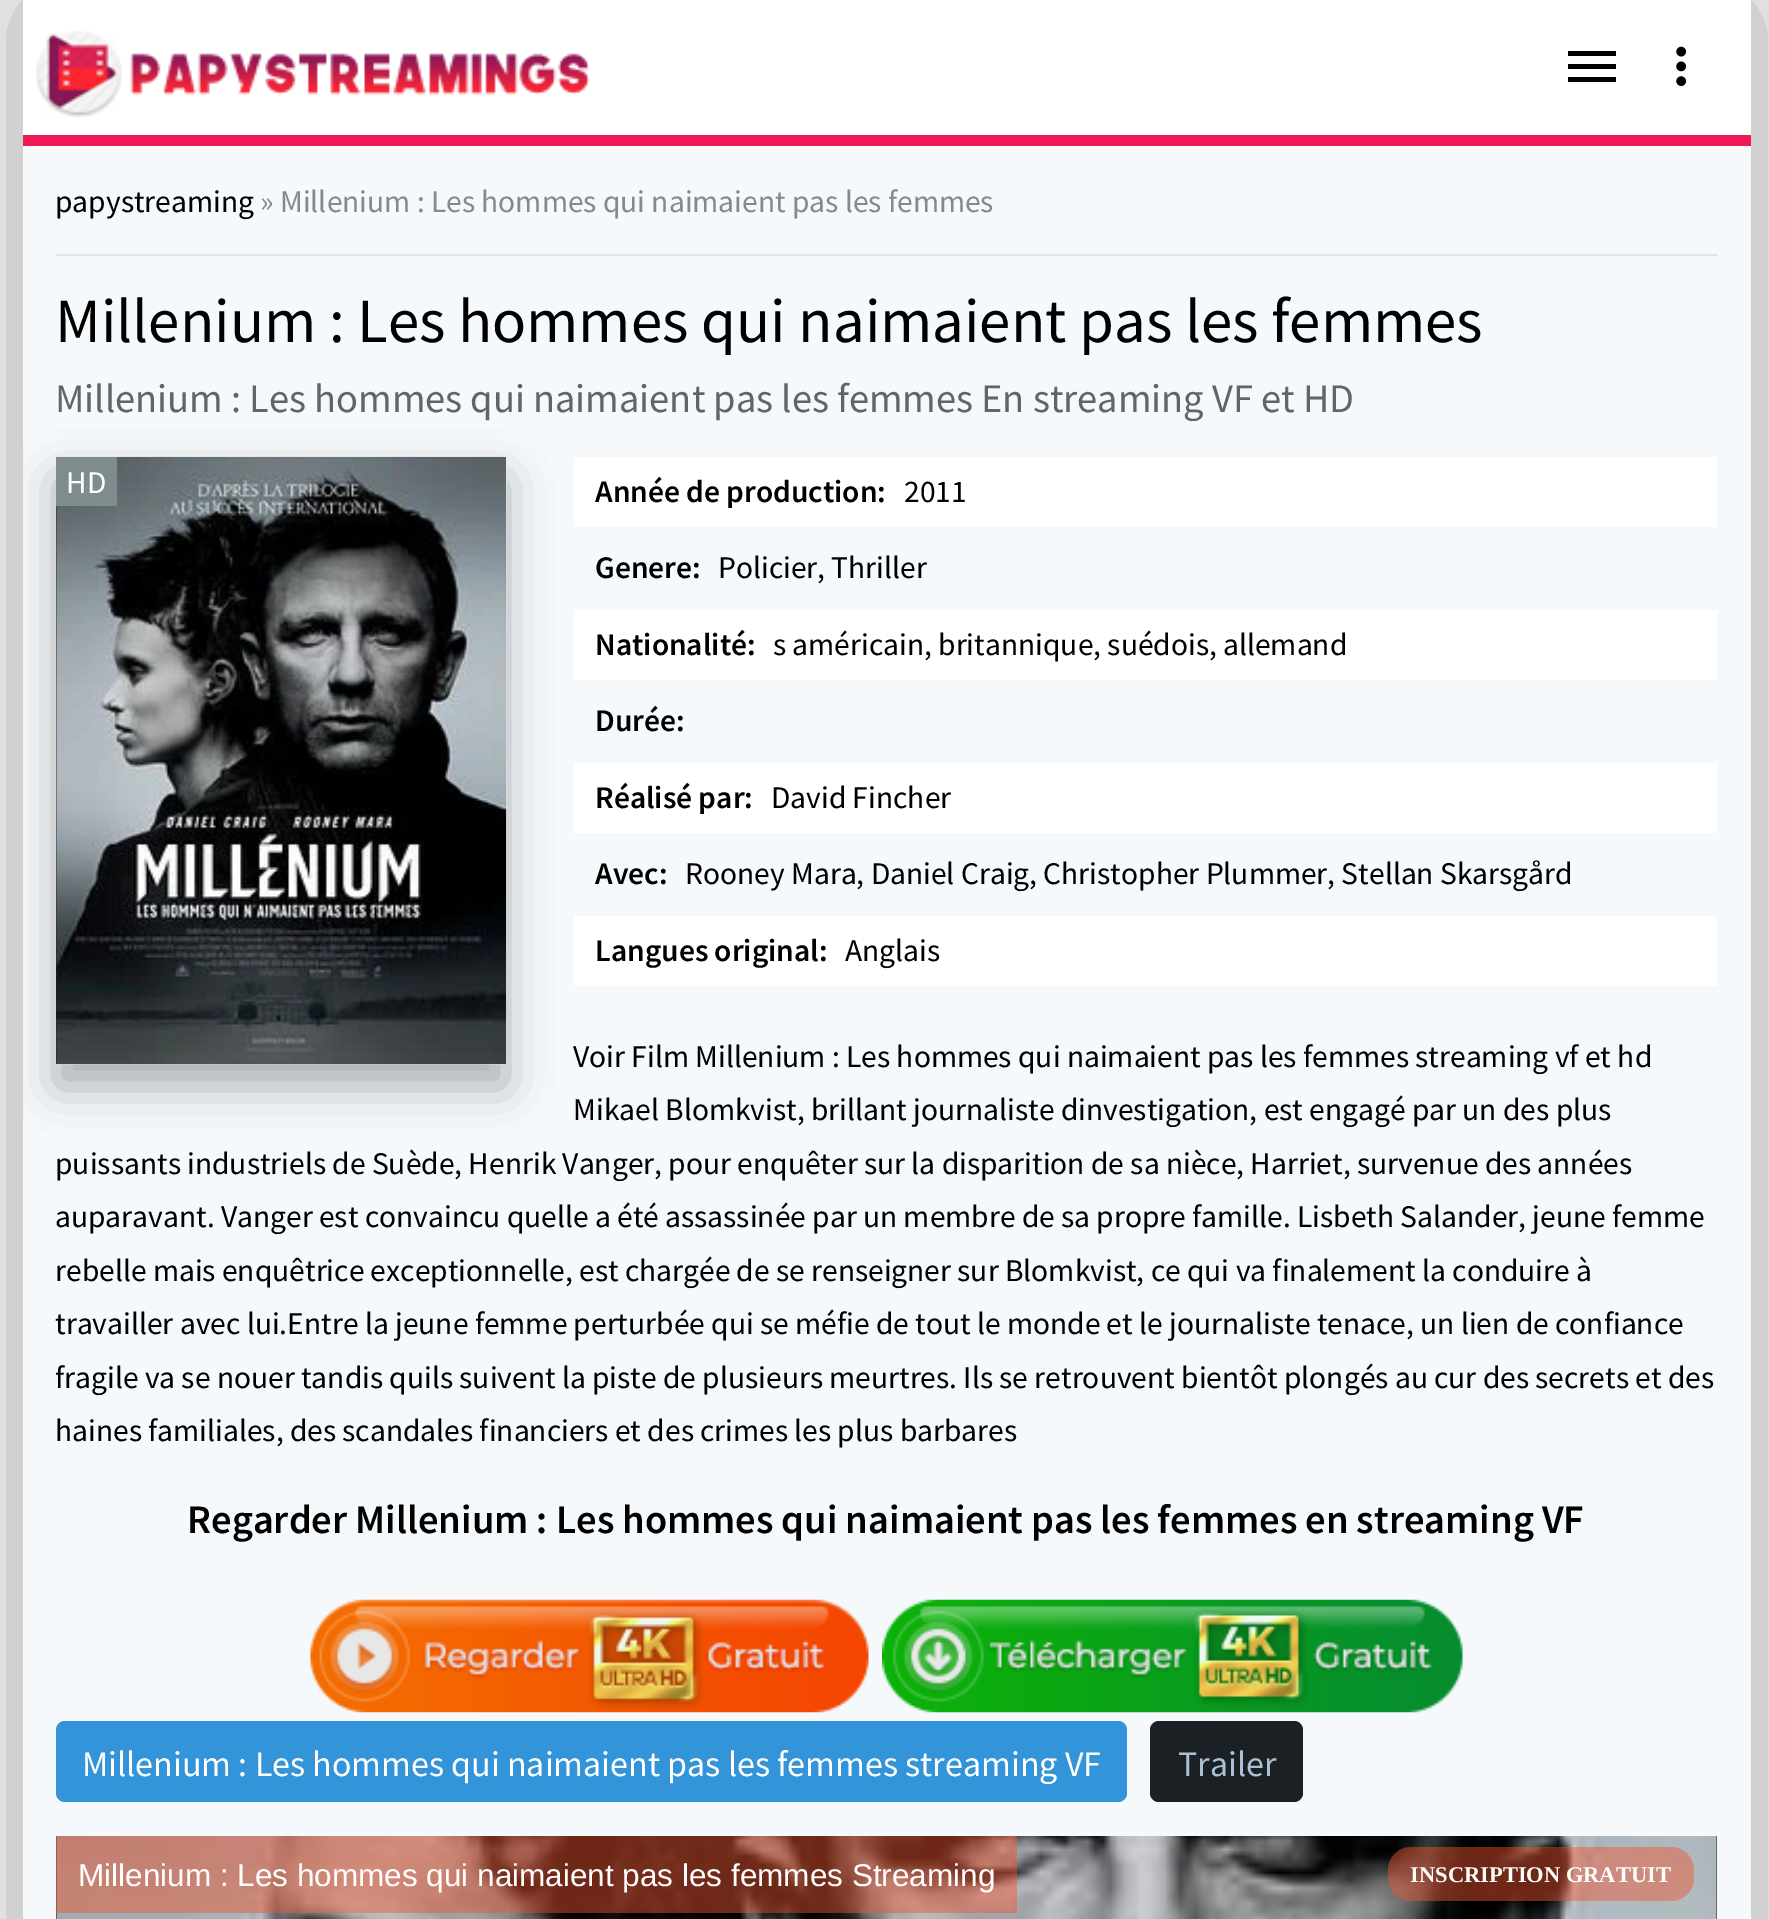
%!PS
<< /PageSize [1769 1919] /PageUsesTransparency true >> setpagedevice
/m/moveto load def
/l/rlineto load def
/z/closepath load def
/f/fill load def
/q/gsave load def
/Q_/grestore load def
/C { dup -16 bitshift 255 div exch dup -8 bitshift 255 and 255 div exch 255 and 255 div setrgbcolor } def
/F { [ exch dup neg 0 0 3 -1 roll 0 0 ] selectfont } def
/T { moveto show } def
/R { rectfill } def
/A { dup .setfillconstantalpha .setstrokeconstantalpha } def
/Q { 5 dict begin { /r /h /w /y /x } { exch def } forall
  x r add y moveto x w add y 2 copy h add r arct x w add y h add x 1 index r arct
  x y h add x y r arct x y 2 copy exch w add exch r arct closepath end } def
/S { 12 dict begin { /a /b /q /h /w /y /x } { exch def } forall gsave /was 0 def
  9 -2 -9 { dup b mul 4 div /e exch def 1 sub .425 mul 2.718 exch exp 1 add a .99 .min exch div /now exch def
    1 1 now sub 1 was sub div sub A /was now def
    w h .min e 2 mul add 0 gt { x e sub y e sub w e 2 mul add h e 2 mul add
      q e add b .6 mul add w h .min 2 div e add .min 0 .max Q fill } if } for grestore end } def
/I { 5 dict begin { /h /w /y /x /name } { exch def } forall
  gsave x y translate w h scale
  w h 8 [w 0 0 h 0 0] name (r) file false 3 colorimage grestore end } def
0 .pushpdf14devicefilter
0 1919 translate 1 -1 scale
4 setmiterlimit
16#F6F6F6 C
0 0 1769 1919 R
16#000000 C
23 0 1728 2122 0 67.5 .3 S
16#F5F9FC C
23 146 1728 1773 R
16#FFFFFF C
23 0 1728 135 R
16#EE1A56 C
23 135 1728 11 R
(1.rgb) 36 31 554 87 I
16#000000 C
1568 82 m 0 -5 l 48 0 l 0 5 l z 1568 69 m 0 -5 l 48 0 l 0 5 l z 1568 51 m 48 0 l 0 5 l -48 0 l z f
(2.rgb) 1676 46 11 41 I
16#E3E3E3 C
56 254 1661 2 R
/SourceSansPro-Regular 31.5 F
16#000000 C
(papystreaming) 55 212 T
16#888888 C
(» Millenium : Les hommes qui naimaient pas les femmes) 260 212 T
/SourceSansPro-Regular 63 F
16#000000 C
(Millenium : Les hommes qui naimaient pas les femmes) 55 342 T
/SourceSansPro-Regular 40.5 F
16#626465 C
(Millenium : Les hommes qui naimaient pas les femmes En streaming VF et HD) 55 412 T
16#FFFFFF C
574 457 1143 70 R
574 610 1143 70 R
574 763 1143 70 R
574 916 1143 70 R
q
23 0 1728 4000 rectclip
16#000000 C
56 479 450 608 0 22.5 .3 S
Q_
16#222222 C
56 506 1 558 R
(3.rgb) 56 456 451 609 I
16#7F8C8D C
56 457 61 49 R
/SourceSansPro-Regular 31.5 F
16#FFFFFF C
(HD) 66 493 T
/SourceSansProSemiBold-SemiBold 31.5 F
16#000000 C
(Année de production:) 595 502 T
/SourceSansPro-Regular 31.5 F
(2011) 904 502 T
/SourceSansProSemiBold-SemiBold 31.5 F
(Genere:) 595 578 T
/SourceSansPro-Regular 31.5 F
(Policier, Thriller) 718 578 T
/SourceSansProSemiBold-SemiBold 31.5 F
(Nationalité:) 595 655 T
/SourceSansPro-Regular 31.5 F
(s américain, britannique, suédois, allemand) 773 655 T
/SourceSansProSemiBold-SemiBold 31.5 F
(Durée:) 595 731 T
(Réalisé par:) 595 808 T
/SourceSansPro-Regular 31.5 F
(David Fincher) 771 808 T
/SourceSansProSemiBold-SemiBold 31.5 F
(Avec:) 595 884 T
/SourceSansPro-Regular 31.5 F
(Rooney Mara, Daniel Craig, Christopher Plummer, Stellan Skarsgård) 685 884 T
/SourceSansProSemiBold-SemiBold 31.5 F
(Langues original:) 595 961 T
/SourceSansPro-Regular 31.5 F
(Anglais) 845 961 T
(Voir Film Millenium : Les hommes qui naimaient pas les femmes streaming vf et hd) 573 1067 T
(Mikael Blomkvist, brillant journaliste dinvestigation, est engagé par un des plus) 573 1120 T
(puissants industriels de Suède, Henrik Vanger, pour enquêter sur la disparition de sa nièce, Harriet, survenue des années) 55 1174 T
(auparavant. Vanger est convaincu quelle a été assassinée par un membre de sa propre famille. Lisbeth Salander, jeune femme) 55 1227 T
(rebelle mais enquêtrice exceptionnelle, est chargée de se renseigner sur Blomkvist, ce qui va finalement la conduire à) 55 1281 T
(travailler avec lui.Entre la jeune femme perturbée qui se méfie de tout le monde et le journaliste tenace, un lien de confiance) 55 1334 T
(fragile va se nouer tandis quils suivent la piste de plusieurs meurtres. Ils se retrouvent bientôt plongés au cur des secrets et des) 55 1388 T
(haines familiales, des scandales financiers et des crimes les plus barbares) 55 1441 T
/SourceSansProSemiBold-SemiBold 40.5 F
(Regarder Millenium : Les hommes qui naimaient pas les femmes en streaming VF) 187 1533 T
(4.rgb) 310 1599 559 114 I
(5.rgb) 882 1599 581 114 I
16#3394D9 C
56 1721 1071 81 9 Q f
/SourceSansPro-Regular 36 F
16#FFFFFF C
(Millenium : Les hommes qui naimaient pas les femmes streaming VF) 82 1776 T
16#1B2024 C
1150 1721 153 81 9 Q f
16#ABC0D5 C
(Trailer) 1178 1776 T
16#000000 C
56 1836 1661 83 R
(6.rgb) 56 1836 1661 83 I
0.46 A
16#F0542E C
56 1836 961 77 R
/LiberationSans-Regular 31.5 F
1 A
16#FFFFFF C
(Millenium : Les hommes qui naimaient pas les femmes Streaming) 78 1886 T
0.46 A
16#F0542E C
1388 1847 306 54 23 Q f
/LiberationSerif-Bold 22.5 F
1 A
16#FFFFFF C
(INSCRIPTION GRATUIT) 1410 1882 T
.poppdf14devicefilter showpage
